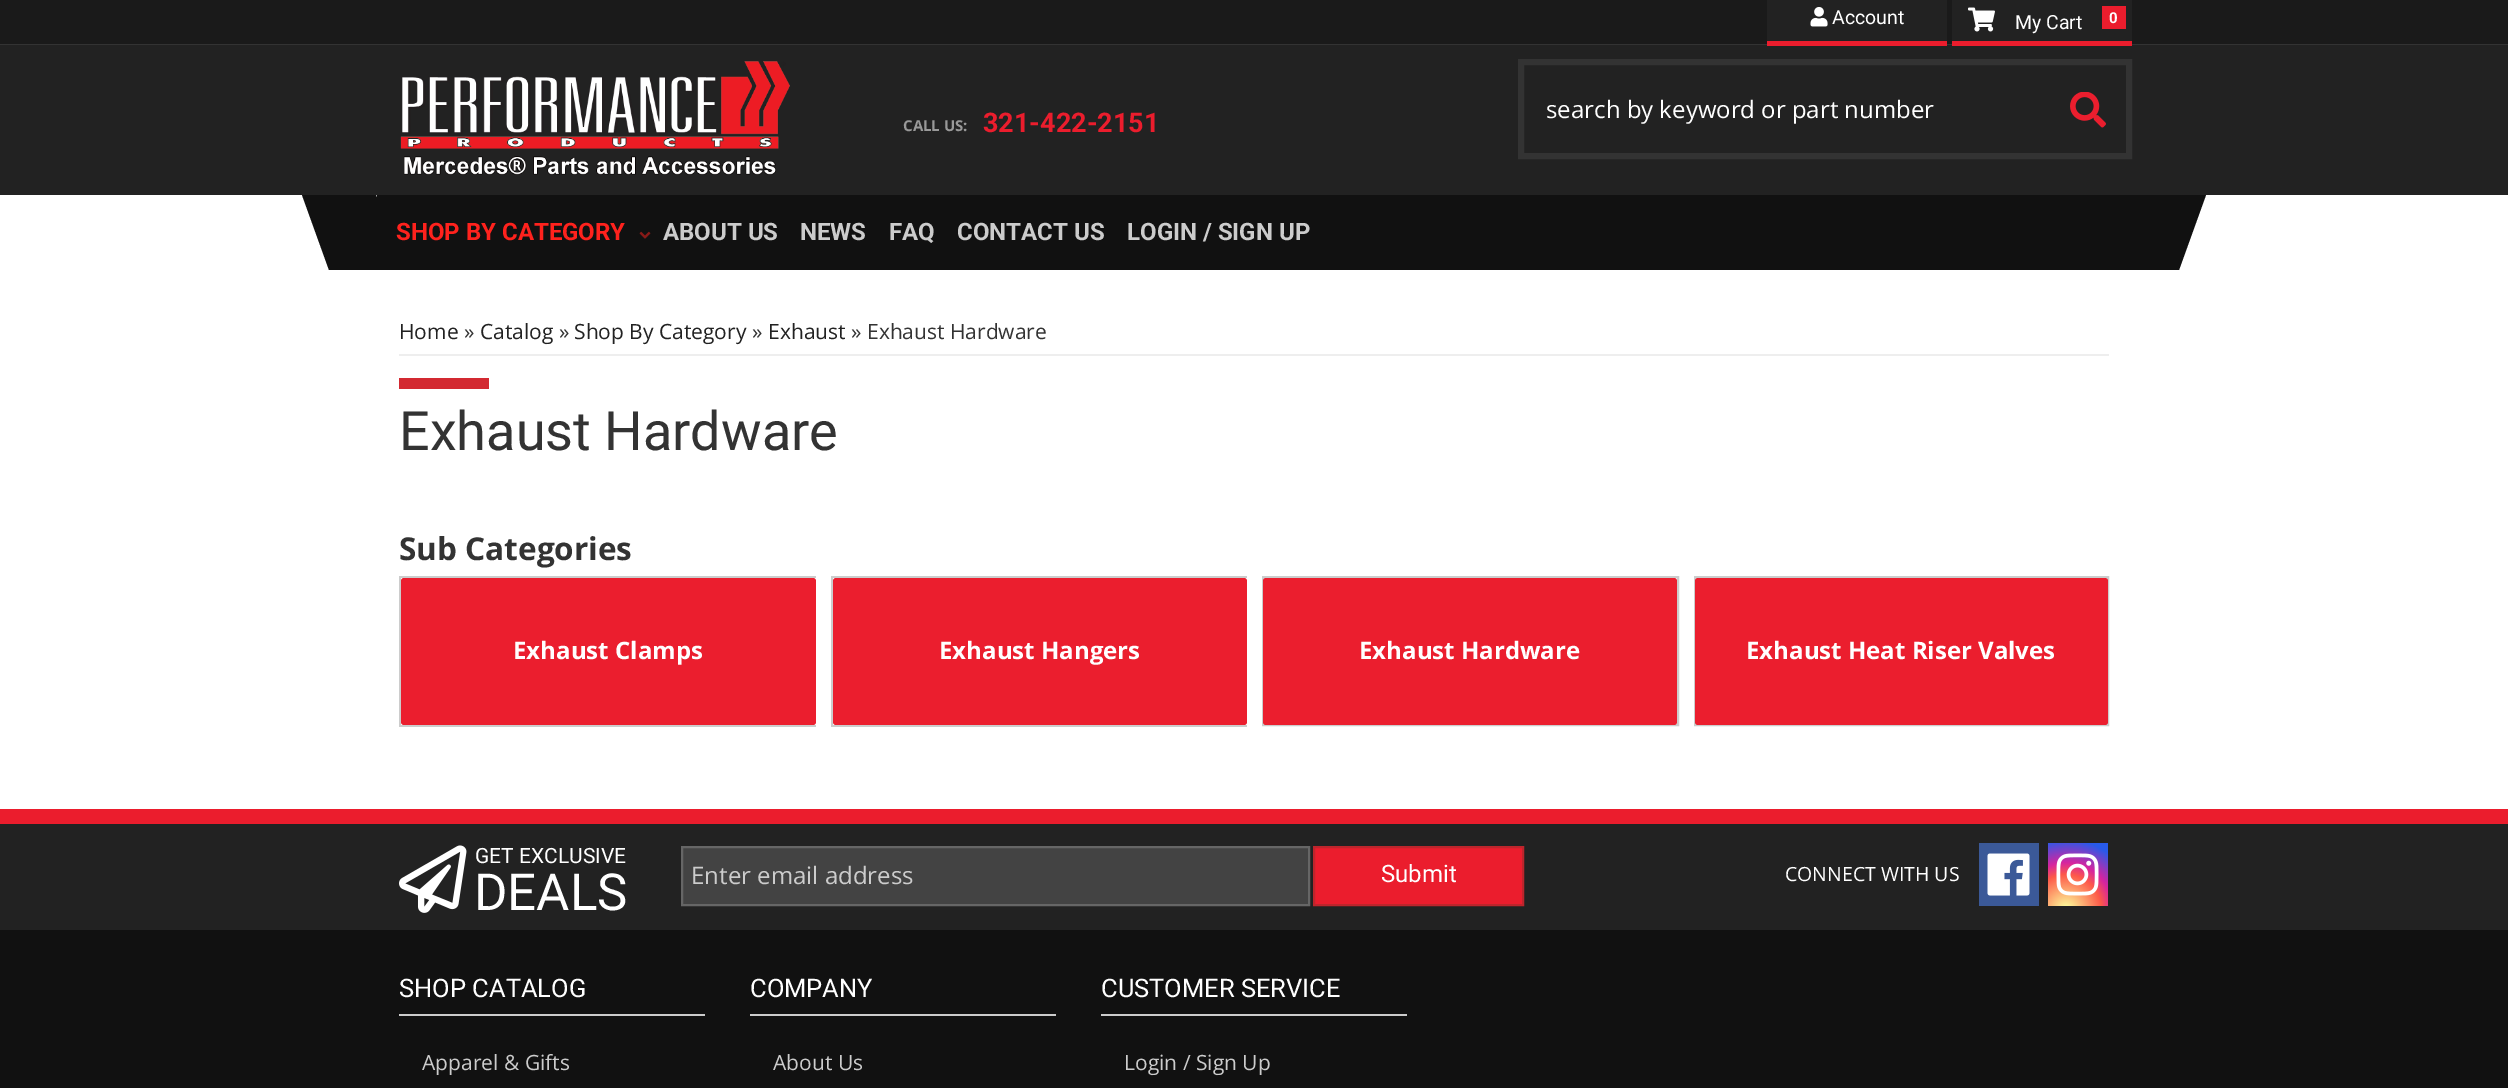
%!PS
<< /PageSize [2508 1088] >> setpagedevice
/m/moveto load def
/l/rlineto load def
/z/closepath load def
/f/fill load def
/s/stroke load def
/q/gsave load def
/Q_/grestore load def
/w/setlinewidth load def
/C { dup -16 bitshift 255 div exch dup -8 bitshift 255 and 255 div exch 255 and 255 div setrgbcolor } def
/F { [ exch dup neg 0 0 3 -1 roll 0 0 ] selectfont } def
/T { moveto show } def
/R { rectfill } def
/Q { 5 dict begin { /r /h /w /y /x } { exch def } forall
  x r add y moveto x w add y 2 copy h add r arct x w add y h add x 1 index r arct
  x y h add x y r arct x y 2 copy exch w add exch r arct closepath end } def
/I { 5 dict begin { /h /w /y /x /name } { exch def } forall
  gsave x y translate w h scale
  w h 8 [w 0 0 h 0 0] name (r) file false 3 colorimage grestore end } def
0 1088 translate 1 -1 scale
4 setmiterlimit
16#FFFFFF C
0 0 2508 1088 R
16#1A1A1A C
0 0 2508 44 R
16#333333 C
0 44 2508 1 R
16#222222 C
0 45 2508 150 R
1767 0 180 41 R
16#EB1D2D C
1767 41 180 5 R
(1.rgb) 1810 7 18 20 I
/Roboto-Regular 19.5 F
16#FFFFFF C
(Account) 1832 24 T
16#222222 C
1952 0 180 41 R
16#EB1D2D C
1952 41 180 5 R
(2.rgb) 1968 7 27 25 I
16#FFFFFF C
(My Cart) 2015 29 T
16#EB1D2D C
2102 6 24 23 R
/Roboto-Bold 15 F
16#FFFFFF C
(0) 2109 23 T
(3.rgb) 400 61 390 114 I
/OpenSans-Bold 15 F
16#999999 C
(CALL US:) 903 131 T
/Roboto-Bold 27 F
16#EB1D2D C
(321-422-2151) 983 132 T
16#333333 C
6 w
1521 62 608 94 rectstroke
/OpenSans-Regular 24 F
16#FFFFFF C
(search by keyword or part number) 1546 118 T
(4.rgb) 2070 92 36 36 I
16#111111 C
377 195 1755 75 R
302 195 m 74 0 l 28 75 l -75 0 l z f
/Roboto-Bold 24 F
16#FF221D C
(SHOP BY CATEGORY) 396 240 T
(5.rgb) 639 231 12 8 I
16#CCCCCC C
(ABOUT US) 663 240 T
(NEWS) 800 240 T
(FAQ) 889 240 T
(CONTACT US) 957 240 T
(LOGIN / SIGN UP) 1127 240 T
16#111111 C
2132 195 m 74 0 l -27 75 l -75 0 l z f
16#EEEEEE C
399 354 1710 2 R
/OpenSans-Regular 21 F
16#222222 C
(Home) 399 339 T
16#333333 C
(») 464 339 T
16#222222 C
(Catalog) 480 339 T
16#333333 C
(») 559 339 T
16#222222 C
(Shop By Category) 574 339 T
16#333333 C
(») 752 339 T
16#222222 C
(Exhaust) 768 339 T
16#333333 C
(» Exhaust Hardware) 851 339 T
16#D32931 C
399 378 90 11 R
/Roboto-Regular 54 F
16#333333 C
(Exhaust Hardware) 399 450 T
/OpenSans-Bold 31.5 F
(Sub Categories) 399 560 T
16#CCCCCC C
399 576 417 2 R
399 725 417 2 R
399 576 2 150 R
16#EB1E2E C
401 578 415 147 3 Q f
/OpenSans-Bold 24 F
16#FFFFFF C
(Exhaust Clamps) 513 659 T
16#CCCCCC C
831 576 416 2 R
831 725 416 2 R
831 576 2 150 R
16#EB1E2E C
833 578 414 147 3 Q f
16#FFFFFF C
(Exhaust Hangers) 939 659 T
16#CCCCCC C
2 w
1263 577 415 148 rectstroke
16#EB1E2E C
1263 578 414 147 3 Q f
16#FFFFFF C
(Exhaust Hardware) 1359 659 T
16#CCCCCC C
1695 577 413 148 rectstroke
16#EB1E2E C
1695 578 413 147 3 Q f
16#FFFFFF C
(Exhaust Heat Riser Valves) 1746 659 T
16#222222 C
0 824 2508 106 R
16#EB1D2D C
0 809 2508 15 R
(6.rgb) 399 845 68 68 I
/Roboto-Regular 21 F
16#FFFFFF C
(GET EXCLUSIVE) 475 863 T
/Roboto-Regular 51 F
(DEALS) 474 910 T
16#434343 C
682 847 m 627 0 l 0 58 l -627 0 l z q f Q_
16#666666 C
s
/OpenSans-Regular 24 F
16#CCCCCC C
(Enter email address) 691 884 T
16#EB1D2D C
1314 847 m 209 0 l 0 58 l -209 0 l z q f Q_
16#BE252C C
s
/Roboto-Regular 24 F
16#FFFFFF C
(Submit) 1381 882 T
/OpenSans-Regular 19.5 F
(CONNECT WITH US) 1785 881 T
16#3B5998 C
1979 843 60 63 R
(7.rgb) 1987 853 43 43 I
q 2048 843 m 60 0 l 0 63 l -60 0 l z clip newpath 2066 910 translate 79 79 scale
<< /ShadingType 3 /ColorSpace /DeviceRGB /Coords [0 0 0 0 0 1] /Extend [true true] /Function << /FunctionType 3 /Domain [0 1] /Functions [<< /FunctionType 2 /Domain [0 1] /C0 [.992 .957 .592] /C1 [.992 .957 .592] /N 1 >> << /FunctionType 2 /Domain [0 1] /C0 [.992 .957 .592] /C1 [.992 .349 .286] /N 1 >> << /FunctionType 2 /Domain [0 1] /C0 [.992 .349 .286] /C1 [.839 .141 .624] /N 1 >> << /FunctionType 2 /Domain [0 1] /C0 [.839 .141 .624] /C1 [.157 .353 .922] /N 1 >> << /FunctionType 2 /Domain [0 1] /C0 [.157 .353 .922] /C1 [.157 .353 .922] /N 1 >>] /Bounds [.05 .45 .6 .9] /Encode [0 1 0 1 0 1 0 1 0 1] >> >> shfill Q_
(8.rgb) 2056 853 43 43 I
16#111111 C
0 930 2508 158 R
16#CCCCCC C
399 1014 306 2 R
/Roboto-Regular 25.5 F
16#FFFFFF C
(SHOP CATALOG) 399 997 T
/OpenSans-Regular 21 F
16#CCCCCC C
(Apparel & Gifts) 422 1070 T
750 1014 306 2 R
/Roboto-Regular 25.5 F
16#FFFFFF C
(COMPANY) 750 997 T
/OpenSans-Regular 21 F
16#CCCCCC C
(About Us) 773 1070 T
1101 1014 306 2 R
/Roboto-Regular 25.5 F
16#FFFFFF C
(CUSTOMER SERVICE) 1101 997 T
/OpenSans-Regular 21 F
16#CCCCCC C
(Login / Sign Up) 1124 1070 T
showpage
